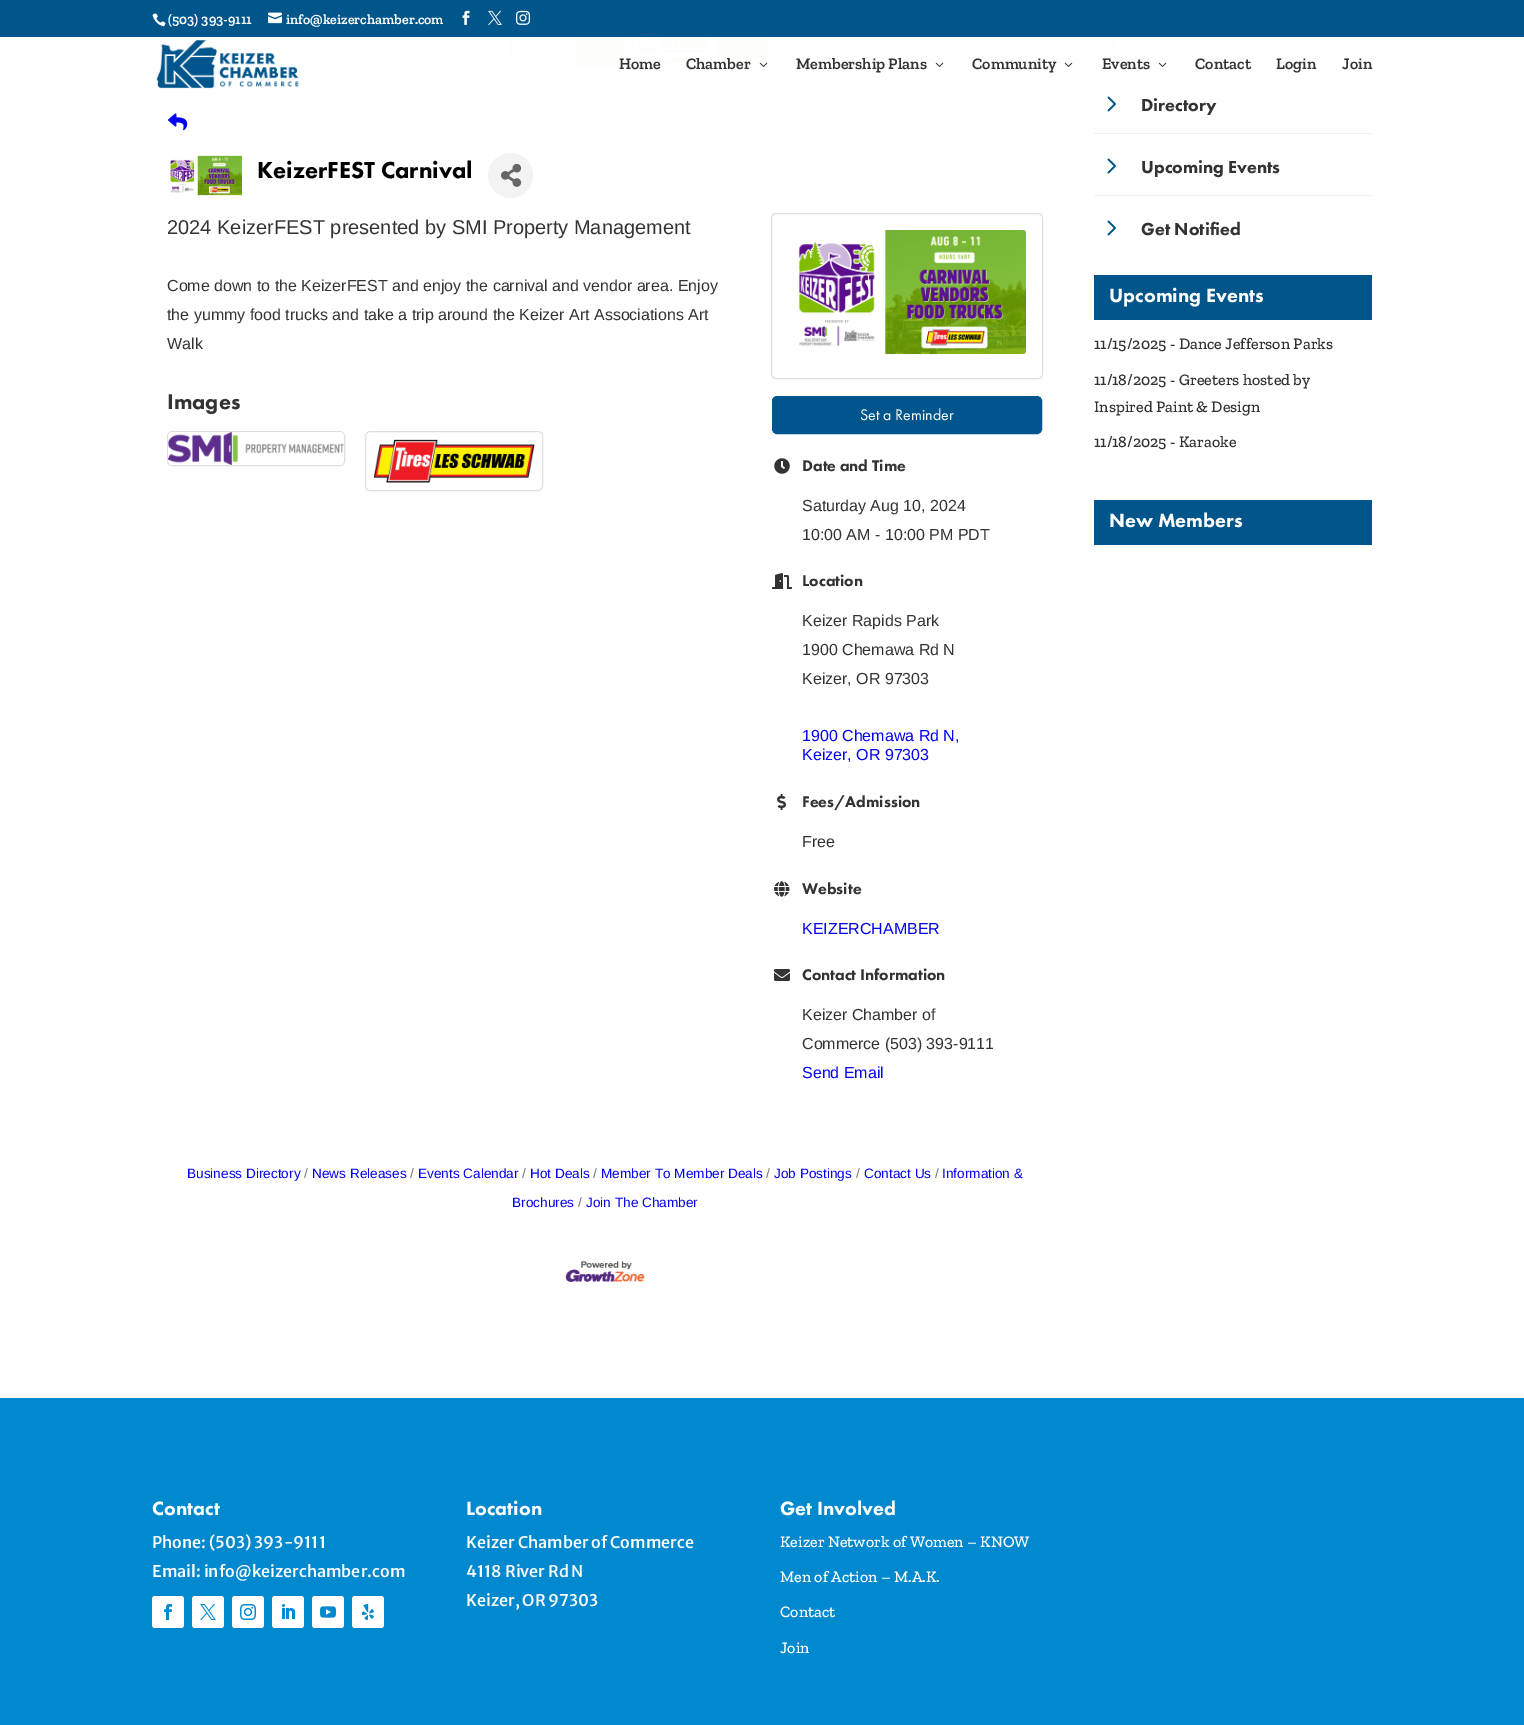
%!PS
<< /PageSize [1524 1725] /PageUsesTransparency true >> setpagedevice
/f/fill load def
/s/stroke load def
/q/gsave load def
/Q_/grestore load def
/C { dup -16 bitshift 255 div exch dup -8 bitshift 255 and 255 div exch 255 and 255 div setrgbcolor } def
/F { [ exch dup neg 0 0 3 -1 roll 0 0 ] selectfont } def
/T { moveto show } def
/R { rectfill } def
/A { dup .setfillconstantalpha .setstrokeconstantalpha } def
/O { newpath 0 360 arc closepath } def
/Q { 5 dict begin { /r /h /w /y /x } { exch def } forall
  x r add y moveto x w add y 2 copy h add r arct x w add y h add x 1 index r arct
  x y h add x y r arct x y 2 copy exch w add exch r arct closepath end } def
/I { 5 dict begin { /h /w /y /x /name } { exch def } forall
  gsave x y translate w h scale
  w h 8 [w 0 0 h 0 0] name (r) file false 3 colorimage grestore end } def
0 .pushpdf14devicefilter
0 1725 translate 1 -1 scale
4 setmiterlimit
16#FFFFFF C
0 0 1524 1725 R
16#00568A C
0 0 1524 37 R
(1.rgb) 152 13 14 14 I
/ZillaSlab-SemiBold 14 F
16#FFFFFF C
(\(503\) 393-9111) 168 24 T
(2.rgb) 268 12 14 12 I
(info@keizerchamber.com) 286 24 T
(3.rgb) 462 10 8 15 I
(4.rgb) 488 10 14 15 I
(5.rgb) 516 10 14 15 I
(9.rgb) 457 37 311 30 I
(22.rgb) 1107 37 9 13 I
16#F2F2F2 C
1094 71 278 1 R
0.99 A
16#FFFFFF C
458 37 914 35 R
1 A
(6.rgb) 156 40 143 49 I
/ZillaSlab-SemiBold 16 F
16#333333 C
(Home) 619 69 T
(Chamber) 686 69 T
(7.rgb) 759 62 9 5 I
(Membership Plans) 796 69 T
(8.rgb) 935 62 9 5 I
(Community) 972 69 T
(8.rgb) 1064 62 9 5 I
(Events) 1102 69 T
(8.rgb) 1158 62 9 5 I
(Contact) 1195 69 T
(Login) 1276 69 T
(Join) 1342 69 T
(10.rgb) 168 113 20 18 I
(11.rgb) 170 155 72 41 I
/FuturaPT-Black 24 F
16#000000 C
(KeizerFEST Carnival) 257 178 T
16#F3F3F3 C
510.5 175.5 22.5 O f
(12.rgb) 501 163 21 24 I
/LiberationSans-Regular 20 F
16#333333 C
(2024 KeizerFEST presented by SMI Property Management) 167 234 T
/LiberationSans-Regular 16 F
(Come down to the KeizerFEST and enjoy the carnival and vendor area. Enjoy) 167 291 T
(the yummy food trucks and take a trip around the Keizer Art Associations Art) 167 320 T
(Walk) 167 349 T
/FuturaPT-Black 22 F
(Images) 167 409 T
16#DFDFDF C
167.5 431.5 177 34 4.5 Q s
(13.rgb) 168 432 176 33 I
365.5 431.5 177 59 4.5 Q s
(14.rgb) 373 439 162 44 I
771.5 213.5 271 165 4.5 Q s
(15.rgb) 798 230 228 124 I
16#00558C C
772.5 396.5 269 37 4.5 Q q f Q_
s
/FuturaPT-Regular 16 F
16#FFFFFF C
(Set a Reminder) 860 420 T
(16.rgb) 774 458 16 16 I
/FuturaPT-Black 16 F
16#333333 C
(Date and Time) 802 471 T
/LiberationSans-Regular 16 F
(Saturday Aug 10, 2024) 802 511 T
(10:00 AM - 10:00 PM PDT) 802 540 T
(17.rgb) 772 573 20 16 I
/FuturaPT-Black 16 F
(Location) 802 586 T
/LiberationSans-Regular 16 F
(Keizer Rapids Park) 802 626 T
(1900 Chemawa Rd N) 802 655 T
(Keizer, OR 97303) 802 684 T
16#0201F2 C
(1900 Chemawa Rd N,) 802 741 T
(Keizer, OR 97303) 802 760 T
(18.rgb) 777 794 9 16 I
/FuturaPT-Black 16 F
16#333333 C
(Fees/Admission) 802 807 T
/LiberationSans-Regular 16 F
(Free) 802 847 T
(19.rgb) 774 881 16 16 I
/FuturaPT-Black 16 F
(Website) 802 894 T
/LiberationSans-Regular 16 F
16#0201F2 C
(KEIZERCHAMBER) 802 934 T
(20.rgb) 774 969 16 12 I
/FuturaPT-Black 16 F
16#333333 C
(Contact Information) 802 980 T
/LiberationSans-Regular 16 F
(Keizer Chamber of) 802 1020 T
(Commerce \(503\) 393-9111) 802 1049 T
16#0201F2 C
(Send Email) 802 1078 T
/LiberationSans-Regular 13.6 F
(Business Directory) 187 1178 T
16#6C757D C
(/) 304 1178 T
16#0201F2 C
(News Releases) 312 1178 T
16#6C757D C
(/) 410 1178 T
16#0201F2 C
(Events Calendar) 418 1178 T
16#6C757D C
(/) 935 1178 T
16#0201F2 C
(Information &) 942 1178 T
(Brochures) 512 1207 T
16#6C757D C
(/) 522 1178 T
16#0201F2 C
(Hot Deals) 530 1178 T
16#6C757D C
(/) 593 1178 T
16#0201F2 C
(Member To Member Deals) 601 1178 T
16#6C757D C
(/) 766 1178 T
16#0201F2 C
(Job Postings) 774 1178 T
16#6C757D C
(/) 856 1178 T
16#0201F2 C
(Contact Us) 864 1178 T
16#6C757D C
(/) 578 1207 T
16#0201F2 C
(Join The Chamber) 586 1207 T
(21.rgb) 565 1261 80 21 I
(23.rgb) 1107 96 9 16 I
/FuturaPT-Black 18 F
16#333333 C
(Directory) 1141 111 T
16#F2F2F2 C
1094 133 278 1 R
(23.rgb) 1107 158 9 16 I
16#333333 C
(Upcoming Events) 1141 173 T
16#F2F2F2 C
1094 195 278 1 R
(23.rgb) 1107 220 9 16 I
16#333333 C
(Get Notified) 1141 235 T
16#00568A C
1094 275 278 45 R
/FuturaPT-Black 20 F
16#FFFFFF C
(Upcoming Events) 1109 302 T
/ZillaSlab-Medium 16 F
16#333333 C
(11/15/2025 - Dance Jefferson Parks) 1094 349 T
(11/18/2025 - Greeters hosted by) 1094 385 T
(Inspired Paint & Design) 1094 412 T
(11/18/2025 - Karaoke) 1094 447 T
16#00568A C
1094 500 278 45 R
/FuturaPT-Black 20 F
16#FFFFFF C
(New Members) 1109 527 T
16#0089CF C
0 1398 1524 327 R
16#FFFFFF C
(Contact) 152 1515 T
/MerriweatherSans-Medium 16 F
(Phone: \(503\) 393-9111) 152 1548 T
(Email: info@keizerchamber.com) 152 1577 T
152 1596 32 32 3 Q f
(24.rgb) 164 1604 8 16 I
192 1596 32 32 3 Q f
(25.rgb) 200 1604 16 16 I
232 1596 32 32 3 Q f
(26.rgb) 240 1604 16 16 I
272 1596 32 32 3 Q f
(27.rgb) 282 1604 14 15 I
312 1596 32 32 3 Q f
(28.rgb) 320 1606 16 12 I
352 1596 32 32 3 Q f
(29.rgb) 362 1604 12 16 I
/FuturaPT-Black 20 F
(Location) 466 1515 T
/MerriweatherSans-Medium 16 F
(Keizer Chamber of Commerce) 466 1548 T
(4118 River Rd N) 466 1577 T
(Keizer, OR 97303) 466 1606 T
/FuturaPT-Black 20 F
(Get Involved) 780 1515 T
/ZillaSlab-Medium 16 F
(Keizer Network of Women – KNOW) 780 1547 T
(Men of Action – M.A.K.) 780 1582 T
(Contact) 780 1617 T
(Join) 780 1653 T
.poppdf14devicefilter showpage
